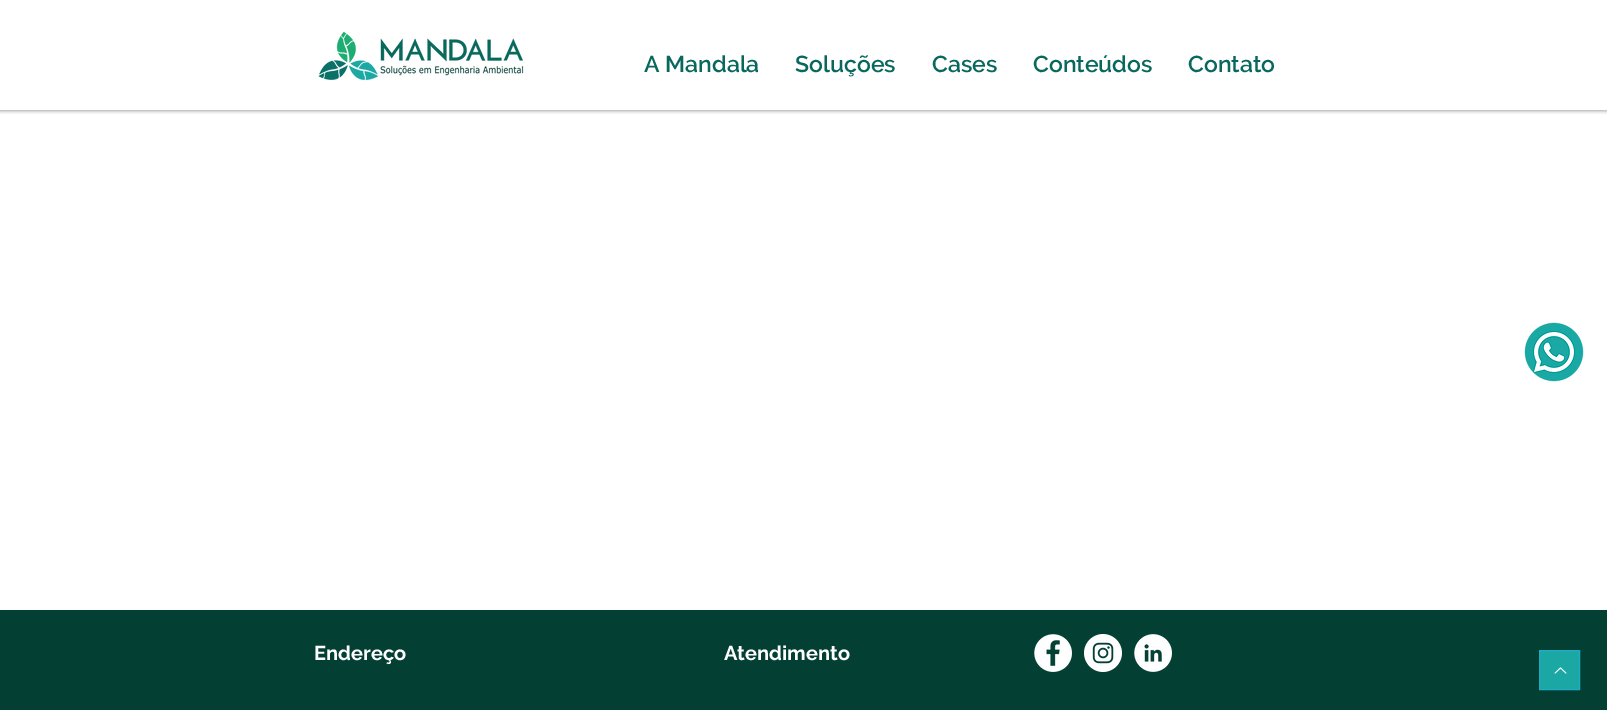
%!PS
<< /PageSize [1607 710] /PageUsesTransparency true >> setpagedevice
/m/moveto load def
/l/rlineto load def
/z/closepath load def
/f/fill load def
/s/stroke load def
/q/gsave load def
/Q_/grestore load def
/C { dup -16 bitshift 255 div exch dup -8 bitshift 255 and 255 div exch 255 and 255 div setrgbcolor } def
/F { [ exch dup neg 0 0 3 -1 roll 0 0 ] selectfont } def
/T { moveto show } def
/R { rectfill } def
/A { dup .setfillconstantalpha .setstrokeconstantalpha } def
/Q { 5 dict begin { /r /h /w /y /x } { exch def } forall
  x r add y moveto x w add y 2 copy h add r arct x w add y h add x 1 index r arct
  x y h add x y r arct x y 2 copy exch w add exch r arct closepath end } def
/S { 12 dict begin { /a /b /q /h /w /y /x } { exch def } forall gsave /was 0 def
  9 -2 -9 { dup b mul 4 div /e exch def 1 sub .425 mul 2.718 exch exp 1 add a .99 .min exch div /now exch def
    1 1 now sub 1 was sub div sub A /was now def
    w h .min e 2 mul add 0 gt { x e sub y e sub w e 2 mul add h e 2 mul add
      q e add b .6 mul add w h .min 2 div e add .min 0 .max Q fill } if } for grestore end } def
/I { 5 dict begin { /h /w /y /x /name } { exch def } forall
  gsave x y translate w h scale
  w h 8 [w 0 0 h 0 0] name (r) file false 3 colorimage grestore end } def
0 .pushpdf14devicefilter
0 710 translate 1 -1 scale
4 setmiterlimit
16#FFFFFF C
0 0 1607 710 R
q
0 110 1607 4 rectclip
16#000000 C
0 0 1607 110 0 2.5 .5 S
Q_
(1.rgb) 318 31 206 50 I
/Raleway-SemiBold 23 F
16#09685D C
(A Mandala) 644 72 T
(Soluções) 795 72 T
(Cases) 932 72 T
(Conteúdos) 1033 72 T
(Contato) 1188 72 T
(2.rgb) 1524 322 60 60 I
16#043F34 C
0 610 1607 100 R
/Raleway-Bold 20 F
16#FFFFFF C
(Endereço) 314 660 T
(Atendimento) 724 660 T
(3.rgb) 1034 634 38 38 I
(4.rgb) 1084 634 38 38 I
(5.rgb) 1134 634 38 38 I
16#1BA8A4 C
1539.5 650.5 m 40 0 l 0 39 l -40 0 l z q f Q_
16#1EABC7 C
s
(6.rgb) 1554 667 13 7 I
.poppdf14devicefilter showpage
